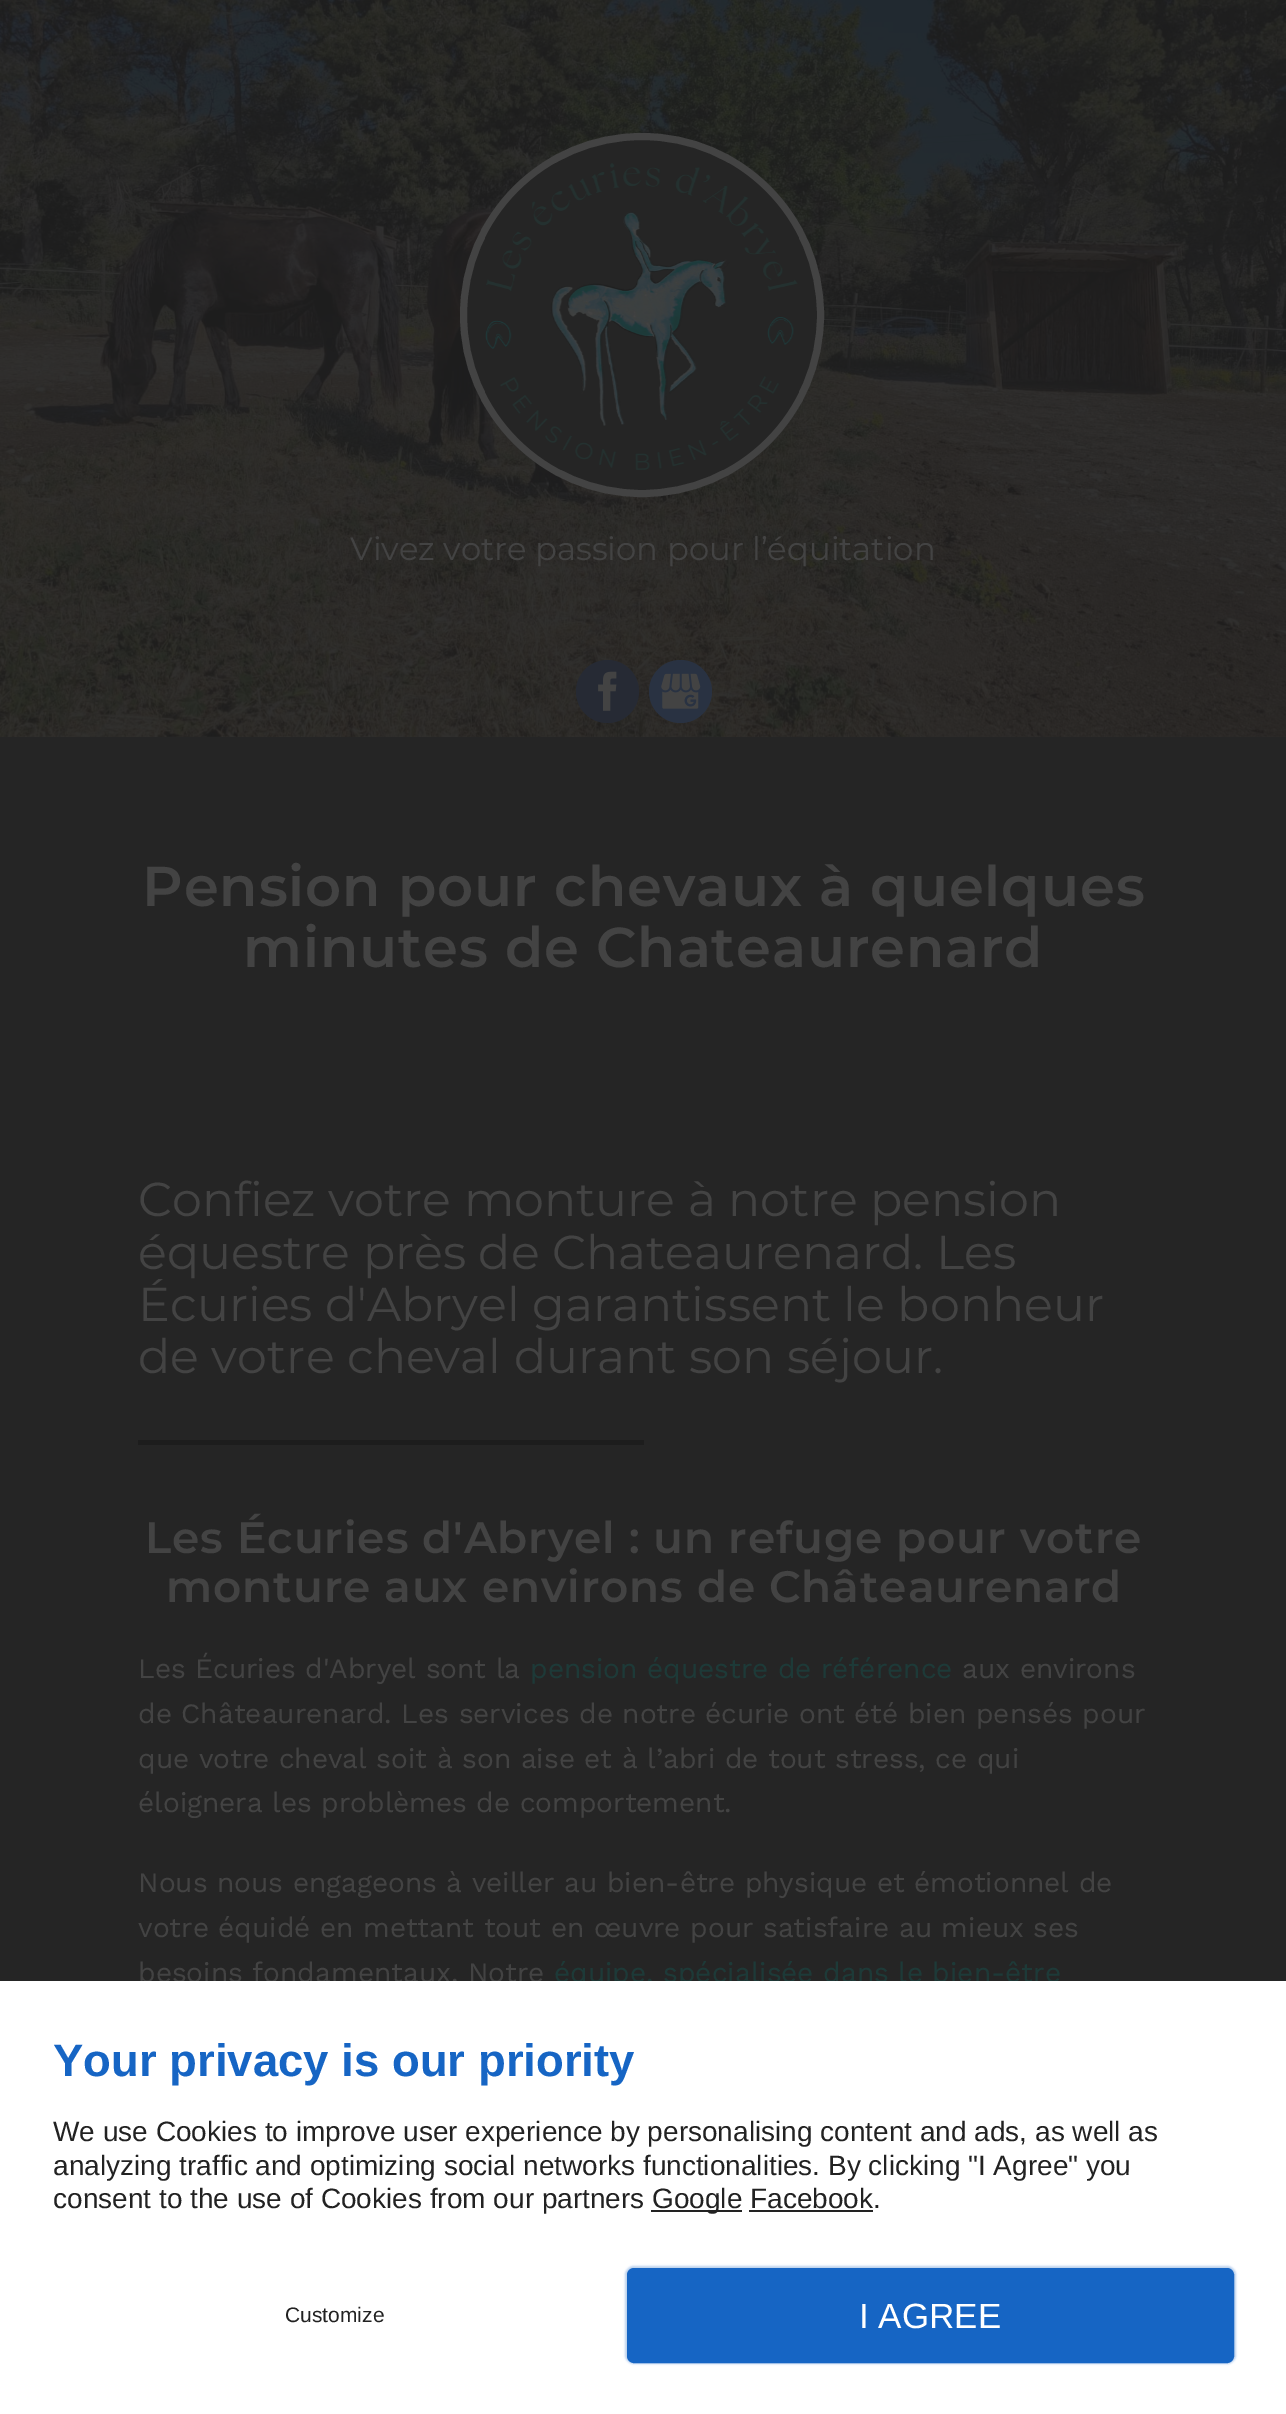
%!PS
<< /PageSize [1286 2414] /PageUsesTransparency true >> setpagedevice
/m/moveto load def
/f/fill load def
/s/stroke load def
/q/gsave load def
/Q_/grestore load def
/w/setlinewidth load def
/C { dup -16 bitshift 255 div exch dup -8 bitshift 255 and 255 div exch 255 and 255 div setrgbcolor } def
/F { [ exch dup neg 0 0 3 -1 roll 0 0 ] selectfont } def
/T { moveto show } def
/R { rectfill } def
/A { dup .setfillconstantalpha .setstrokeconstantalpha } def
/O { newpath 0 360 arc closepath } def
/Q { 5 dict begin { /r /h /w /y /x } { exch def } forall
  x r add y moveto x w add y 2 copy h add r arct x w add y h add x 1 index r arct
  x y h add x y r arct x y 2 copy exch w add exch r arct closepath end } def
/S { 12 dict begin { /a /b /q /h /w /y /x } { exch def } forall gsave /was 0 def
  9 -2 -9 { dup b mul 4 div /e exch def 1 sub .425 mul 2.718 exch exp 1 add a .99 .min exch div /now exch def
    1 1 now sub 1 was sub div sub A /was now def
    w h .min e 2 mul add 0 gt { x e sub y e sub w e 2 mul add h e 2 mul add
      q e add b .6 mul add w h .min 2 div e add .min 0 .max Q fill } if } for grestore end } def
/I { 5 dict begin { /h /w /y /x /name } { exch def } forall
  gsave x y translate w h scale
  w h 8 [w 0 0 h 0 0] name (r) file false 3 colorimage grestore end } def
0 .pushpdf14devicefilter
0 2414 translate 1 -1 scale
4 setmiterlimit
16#FFFFFF C
0 0 1286 2414 R
(1.rgb) 0 0 1286 737 I
16#252525 C
642 315 178.5 O q f Q_
16#434343 C
7 w
s
(2.rgb) 485 163 314 307 I
/Montserrat-Regular 32.3 F
(Vivez votre passion pour l’équitation) 350 560 T
16#262A34 C
607.5 691.5 31.5 O f
(3.rgb) 598 671 19 40 I
16#293242 C
680.5 691.5 31.5 O f
(4.rgb) 661 673 40 36 I
16#252525 C
0 737 1286 1244 R
/Montserrat-SemiBold 56 F
16#434343 C
142 906 m .9 0 (Pension pour chevaux à quelques) ashow
243 967 m .9 0 (minutes de Chateaurenard) ashow
/Montserrat-Regular 47.6 F
(Confiez votre monture à notre pension) 138 1216 T
(équestre près de Chateaurenard. Les) 138 1269 T
(Écuries d'Abryel garantissent le bonheur) 138 1321 T
(de votre cheval durant son séjour.) 138 1373 T
16#1D1D1D C
138 1440 506 5 R
/Montserrat-SemiBold 43.9 F
16#434343 C
145 1553 m .9 0 (Les Écuries d'Abryel : un refuge pour votre) ashow
166 1602 m .9 0 (monture aux environs de Châteaurenard) ashow
/WorkSans-Regular 28 F
(Les Écuries d'Abryel sont la) 138 1678 T
16#1D3A38 C
(pension équestre de référence) 530 1678 T
16#434343 C
(aux environs) 962 1678 T
(de Châteaurenard. Les services de notre écurie ont été bien pensés pour) 138 1723 T
(que votre cheval soit à son aise et à l’abri de tout stress, ce qui) 138 1768 T
(éloignera les problèmes de comportement.) 138 1812 T
(Nous nous engageons à veiller au bien-être physique et émotionnel de) 138 1892 T
(votre équidé en mettant tout en œuvre pour satisfaire au mieux ses) 138 1937 T
(besoins fondamentaux. Notre) 138 1982 T
16#1D3A38 C
(équipe, spécialisée dans le bien-être) 554 1982 T
16#FFFFFF C
140 1981 918 7 R
/LiberationSans-Bold 45.5 F
16#1665C4 C
(Your privacy is our priority) 53 2076 T
/LiberationSans-Regular 28 F
16#222222 C
(We use Cookies to improve user experience by personalising content and ads, as well as) 53 2141 T
(analyzing traffic and optimizing social networks functionalities. By clicking "I Agree" you) 53 2175 T
(consent to the use of Cookies from our partners) 53 2208 T
651 2210 91 2 R
(Google Facebook.) 652 2208 T
749 2210 124 2 R
/LiberationSans-Regular 21 F
(Customize) 285 2322 T
16#1665C4 C
625 2266 611 98 9 1 .3 S
629 2270 603 91 5 Q q f Q_
4 w
s
/LiberationSans-Regular 35 F
16#FFFFFF C
(I AGREE) 859 2328 T
.poppdf14devicefilter showpage
